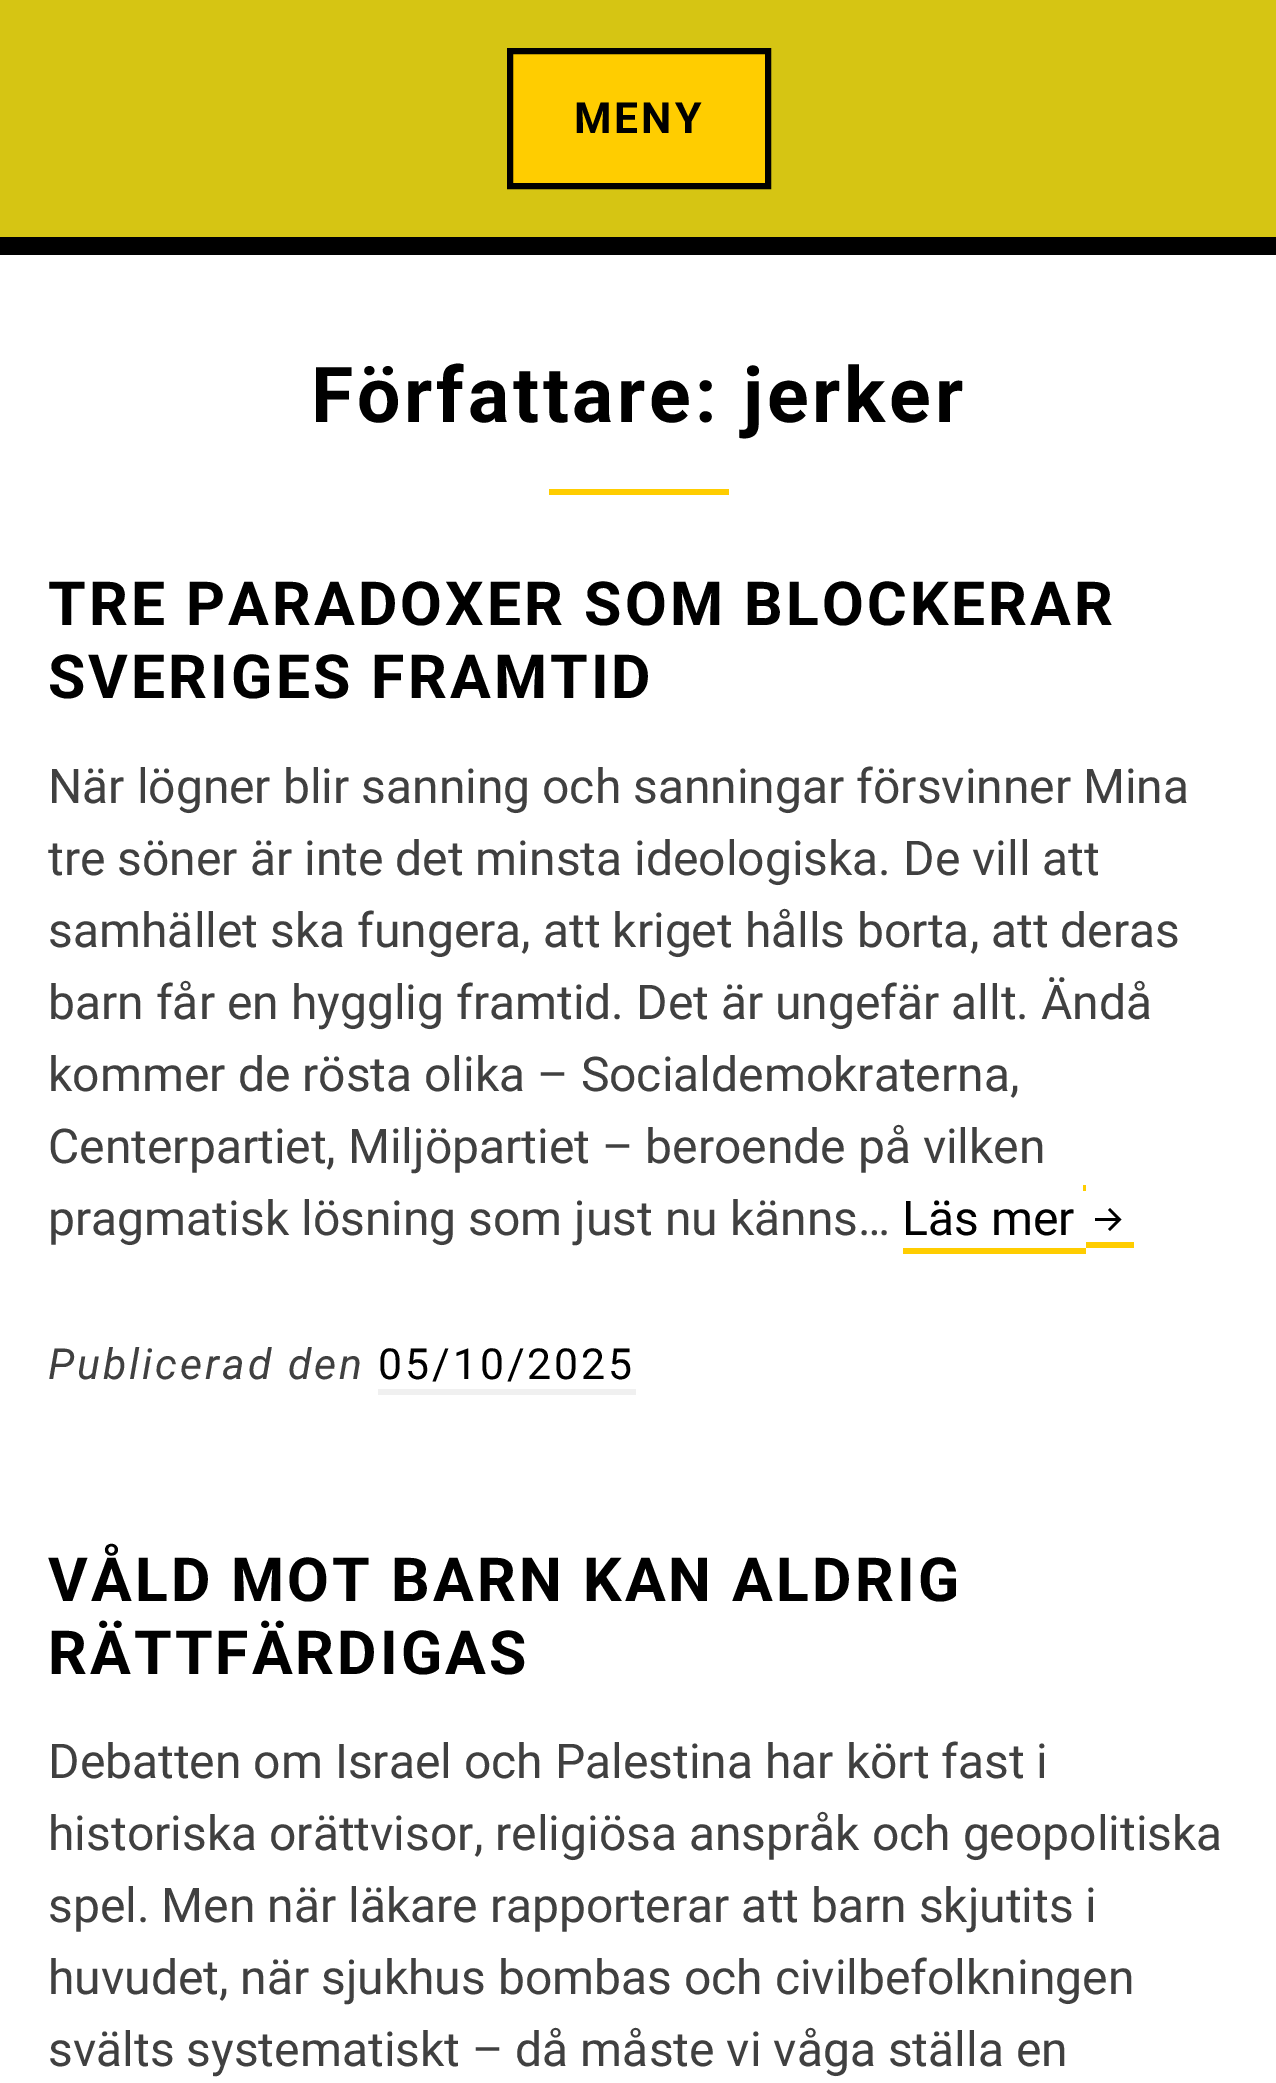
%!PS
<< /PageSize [1276 2083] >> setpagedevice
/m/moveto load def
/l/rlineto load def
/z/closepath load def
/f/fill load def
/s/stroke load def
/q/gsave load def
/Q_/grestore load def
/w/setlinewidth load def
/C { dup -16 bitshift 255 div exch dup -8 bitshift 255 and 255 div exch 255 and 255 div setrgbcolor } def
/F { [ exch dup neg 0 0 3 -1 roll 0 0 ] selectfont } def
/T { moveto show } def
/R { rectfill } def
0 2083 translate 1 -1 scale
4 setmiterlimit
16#D6C513 C
0 0 1276 2083 R
16#FFCD00 C
510 51 m 258 0 l 0 135 l -258 0 l z q f Q_
16#000000 C
6 w
s
/Roboto-Bold 42.75 F
574 133 m 3 0 (MENY) ashow
16#FFFFFF C
0 255 1276 1828 R
16#000000 C
0 237 1276 18 R
/Roboto-Bold 77 F
311 422 m 3.8 0 (Författare: jerker) ashow
16#FFCD00 C
549 489 180 6 R
/Roboto-Bold 60.75 F
16#000000 C
48 625 m 3.05 0 (TRE PARADOXER SOM BLOCKERAR) ashow
48 698 m 3.05 0 (SVERIGES FRAMTID) ashow
/Roboto-Regular 48 F
16#404040 C
(När lögner blir sanning och sanningar försvinner Mina) 48 803 T
(tre söner är inte det minsta ideologiska. De vill att) 48 875 T
(samhället ska fungera, att kriget hålls borta, att deras) 48 947 T
(barn får en hygglig framtid. Det är ungefär allt. Ändå) 48 1019 T
(kommer de rösta olika – Socialdemokraterna,) 48 1091 T
(Centerpartiet, Miljöpartiet – beroende på vilken) 48 1163 T
(pragmatisk lösning som just nu känns…) 48 1235 T
16#FFCD00 C
903 1248 183 6 R
1083 1185 3 6 R
1086 1242 48 6 R
16#000000 C
(Läs mer) 902 1235 T
1110 1208 m -2 2 l 8 8 l -21 0 l 0 3 l 21 0 l -8 8 l 2 2 l 11.5 -11.5 l z f
/Roboto-Italic 42.75 F
16#404040 C
48 1379 m 3 0 (Publicerad den) ashow
/Roboto-Regular 42.75 F
16#000000 C
378 1379 m 3 0 (05/10/2025) ashow
16#F0F0F0 C
378 1389 258 6 R
/Roboto-Bold 60.75 F
16#000000 C
48 1601 m 3.05 0 (VÅLD MOT BARN KAN ALDRIG) ashow
48 1674 m 3.05 0 (RÄTTFÄRDIGAS) ashow
/Roboto-Regular 48 F
16#404040 C
(Debatten om Israel och Palestina har kört fast i) 48 1778 T
(historiska orättvisor, religiösa anspråk och geopolitiska) 48 1850 T
(spel. Men när läkare rapporterar att barn skjutits i) 48 1922 T
(huvudet, när sjukhus bombas och civilbefolkningen) 48 1994 T
(svälts systematiskt – då måste vi våga ställa en) 48 2066 T
showpage
